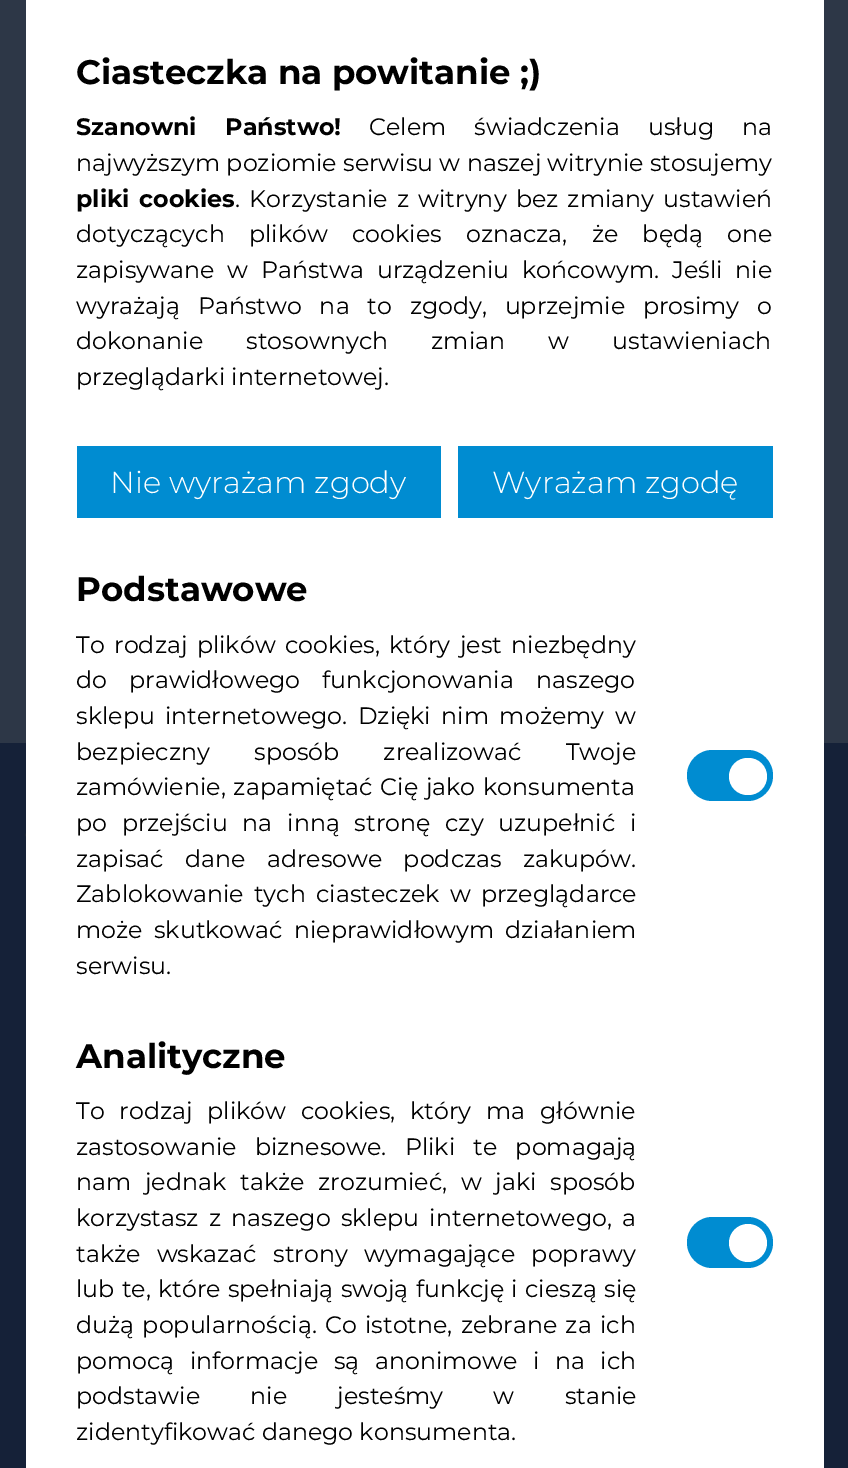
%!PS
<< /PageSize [848 1468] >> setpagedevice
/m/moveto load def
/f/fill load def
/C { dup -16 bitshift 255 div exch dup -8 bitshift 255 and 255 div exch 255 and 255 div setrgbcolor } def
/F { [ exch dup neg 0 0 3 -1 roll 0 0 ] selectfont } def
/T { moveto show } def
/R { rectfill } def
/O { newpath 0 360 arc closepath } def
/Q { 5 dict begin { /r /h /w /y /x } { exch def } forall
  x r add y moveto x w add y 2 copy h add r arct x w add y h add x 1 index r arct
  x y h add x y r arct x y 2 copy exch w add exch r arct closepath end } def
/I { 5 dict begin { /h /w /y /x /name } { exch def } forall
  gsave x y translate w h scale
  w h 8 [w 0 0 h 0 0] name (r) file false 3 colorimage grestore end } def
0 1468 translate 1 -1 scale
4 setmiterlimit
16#2D3747 C
0 0 848 1468 R
16#152138 C
0 743 848 725 R
16#FFFFFF C
26 0 798 1468 R
/Montserrat-Bold 34 F
16#000000 C
(Ciasteczka na powitanie ;\)) 76 84 T
/Montserrat-Bold 23.75 F
76 135 m 22 0 32 (Szanowni Państwo!) widthshow
/Montserrat-Regular 23.75 F
369 135 m 22 0 32 (Celem świadczenia usług na) widthshow
(najwyższym poziomie serwisu w naszej witrynie stosujemy) 76 171 T
/Montserrat-Bold 23.75 F
76 207 m 3 0 32 (pliki cookies) widthshow
/Montserrat-Regular 23.75 F
235 207 m 3 0 32 (. Korzystanie z witryny bez zmiany ustawień) widthshow
76 242 m 18 0 32 (dotyczących plików cookies oznacza, że będą one) widthshow
76 278 m 6.5 0 32 (zapisywane w Państwa urządzeniu końcowym. Jeśli nie) widthshow
76 314 m 11.5 0 32 (wyrażają Państwo na to zgody, uprzejmie prosimy o) widthshow
76 349 m 37 0 32 (dokonanie stosownych zmian w ustawieniach) widthshow
(przeglądarki internetowej.) 76 385 T
16#008CD1 C
77 446 364 72 R
/Montserrat-Light 30.5 F
16#FFFFFF C
(Nie wyrażam zgody) 110 493 T
16#008CD1 C
458 446 315 72 R
16#FFFFFF C
(Wyrażam zgodę) 492 493 T
/Montserrat-Bold 34 F
16#000000 C
(Podstawowe) 76 601 T
/Montserrat-Regular 23.75 F
76 653 m 3.25 0 32 (To rodzaj plików cookies, który jest niezbędny) widthshow
76 688 m 16 0 32 (do prawidłowego funkcjonowania naszego) widthshow
76 724 m 4.25 0 32 (sklepu internetowego. Dzięki nim możemy w) widthshow
76 760 m 38 0 32 (bezpieczny sposób zrealizować Twoje) widthshow
76 795 m 1.5 0 32 (zamówienie, zapamiętać Cię jako konsumenta) widthshow
76 831 m 8.5 0 32 (po przejściu na inną stronę czy uzupełnić i) widthshow
76 867 m 15 0 32 (zapisać dane adresowe podczas zakupów.) widthshow
76 902 m 4 0 32 (Zablokowanie tych ciasteczek w przeglądarce) widthshow
76 938 m 5 0 32 (może skutkować nieprawidłowym działaniem) widthshow
(serwisu.) 76 974 T
16#008CD1 C
687 750 86 51 25.5 Q f
16#FFFFFF C
729 758 38 37 18.5 Q f
/Montserrat-Bold 34 F
16#000000 C
(Analityczne) 76 1068 T
/Montserrat-Regular 23.75 F
76 1119 m 8.5 0 32 (To rodzaj plików cookies, który ma głównie) widthshow
76 1155 m 12 0 32 (zastosowanie biznesowe. Pliki te pomagają) widthshow
76 1190 m 7.5 0 32 (nam jednak także zrozumieć, w jaki sposób) widthshow
76 1226 m 4 0 32 (korzystasz z naszego sklepu internetowego, a) widthshow
76 1262 m 10 0 32 (także wskazać strony wymagające poprawy) widthshow
76 1297 m 1 0 32 (lub te, które spełniają swoją funkcję i cieszą się) widthshow
76 1333 m 2 0 32 (dużą popularnością. Co istotne, zebrane za ich) widthshow
76 1369 m 9.25 0 32 (pomocą informacje są anonimowe i na ich) widthshow
76 1404 m 44 0 32 (podstawie nie jesteśmy w stanie) widthshow
(zidentyfikować danego konsumenta.) 76 1440 T
16#008CD1 C
687 1217 86 51 25.5 Q f
16#FFFFFF C
748 1243 19 O f
(1.rgb) 25 833 1 4 I
showpage
